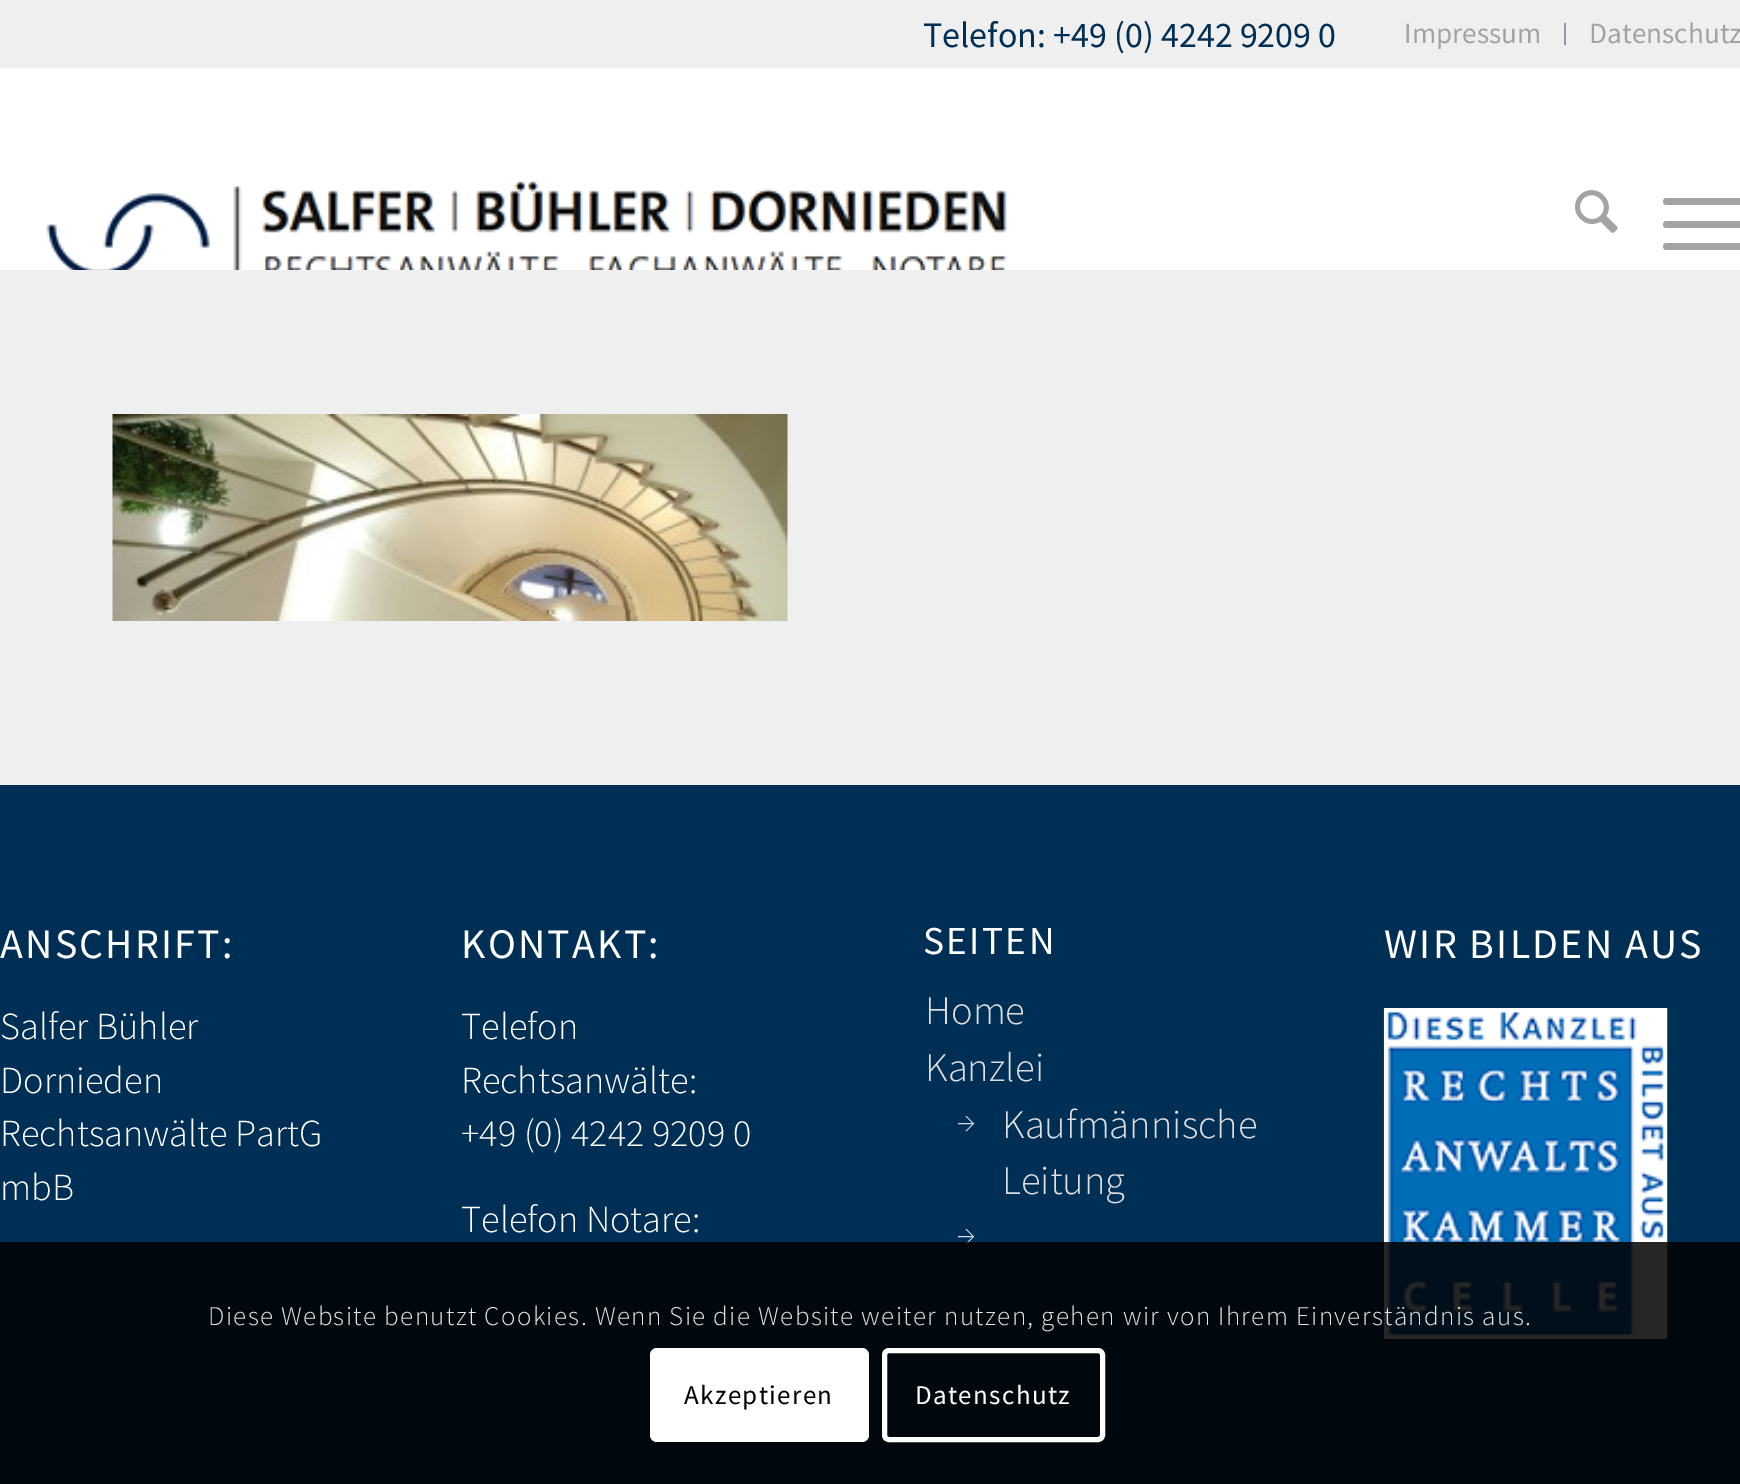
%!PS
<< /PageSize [1740 1484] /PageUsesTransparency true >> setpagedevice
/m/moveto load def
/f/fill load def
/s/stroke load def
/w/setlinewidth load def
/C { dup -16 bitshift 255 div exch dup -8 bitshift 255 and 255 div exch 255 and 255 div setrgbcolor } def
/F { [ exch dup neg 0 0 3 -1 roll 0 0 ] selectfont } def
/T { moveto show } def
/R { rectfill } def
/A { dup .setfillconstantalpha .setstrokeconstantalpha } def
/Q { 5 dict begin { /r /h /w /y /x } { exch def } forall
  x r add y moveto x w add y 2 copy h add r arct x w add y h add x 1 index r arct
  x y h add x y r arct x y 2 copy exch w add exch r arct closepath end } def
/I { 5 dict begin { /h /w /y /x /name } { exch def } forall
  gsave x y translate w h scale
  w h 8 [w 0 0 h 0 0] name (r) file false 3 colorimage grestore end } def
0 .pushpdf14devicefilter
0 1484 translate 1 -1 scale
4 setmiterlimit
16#EFEFEF C
0 0 1740 1484 R
/SourceSansPro-Regular 36 F
16#002F55 C
(Telefon: +49 \(0\) 4242 9209 0) 923 47 T
16#8F96A8 C
1564 23 2 22 R
/SourceSansPro-Regular 29.25 F
16#A3A3A3 C
(Impressum) 1404 43 T
(Datenschutz) 1589 43 T
16#FFFFFF C
0 68 1740 202 R
(1.rgb) 46 181 961 89 I
(2.rgb) 1575 190 43 43 I
16#A3A3A3 C
1663 221 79 7 3.5 Q f
1663 198 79 7 3.5 Q f
1663 243 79 7 3.5 Q f
(3.rgb) 112 414 676 207 I
16#002F55 C
0 785 1740 699 R
/SourceSansPro-Regular 42 F
16#FFFFFF C
0 958 m 2.25 0 (ANSCHRIFT:) ashow
/SourceSansPro-Light 38.25 F
(Salfer Bühler) 0 1039 T
(Dornieden) 0 1093 T
(Rechtsanwälte PartG) 0 1146 T
(mbB) 0 1200 T
/SourceSansPro-Regular 42 F
461 958 m 2.25 0 (KONTAKT:) ashow
/SourceSansPro-Light 38.25 F
(Telefon) 461 1039 T
(Rechtsanwälte:) 461 1093 T
(+49 \(0\) 4242 9209 0) 461 1146 T
(Telefon Notare:) 461 1232 T
/SourceSansPro-Regular 39.5 F
923 954 m 2.25 0 (SEITEN) ashow
/SourceSansPro-Light 40.5 F
16#DEDEDE C
(Home) 925 1024 T
(Kanzlei) 925 1081 T
/SourceSansPro-Light 29.25 F
16#D6DCEB C
(→) 957 1131 T
/SourceSansPro-Light 40.5 F
16#DEDEDE C
(Kaufmännische) 1002 1138 T
(Leitung) 1002 1194 T
/SourceSansPro-Light 29.25 F
16#D6DCEB C
(→) 957 1244 T
/SourceSansPro-Regular 42 F
16#FFFFFF C
1384 958 m 2.25 0 (WIR BILDEN AUS) ashow
(4.rgb) 1383 1008 285 331 I
0.85 A
16#000000 C
0 1242 1740 242 R
/SourceSansPro-Light 27 F
1 A
16#E6E6E7 C
208 1325 m 1.35 0 (Diese Website benutzt Cookies. Wenn Sie die Website weiter nutzen, gehen wir von Ihrem Einverständnis aus.) ashow
16#FFFFFF C
650 1348 219 94 7 Q f
/SourceSansPro-Regular 27 F
16#000000 C
684 1404 m 1.35 0 (Akzeptieren) ashow
16#FFFFFF C
5 w
884.5 1350.5 218 89 4.5 Q s
915 1404 m 1.35 0 (Datenschutz) ashow
.poppdf14devicefilter showpage
